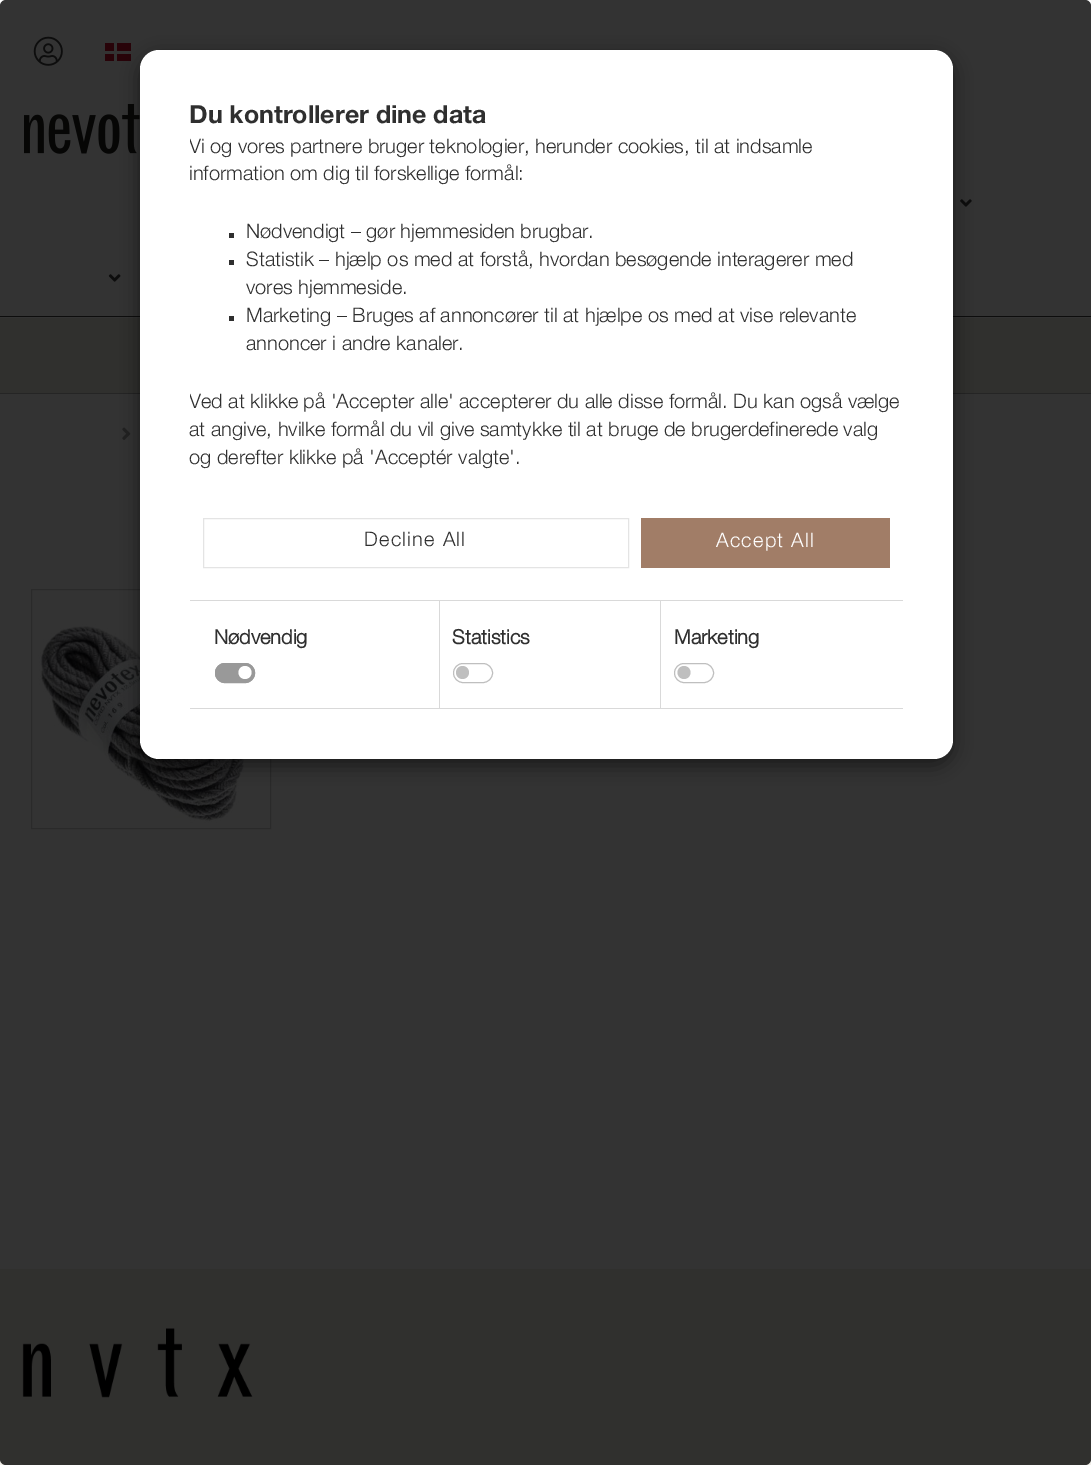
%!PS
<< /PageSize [1091 1465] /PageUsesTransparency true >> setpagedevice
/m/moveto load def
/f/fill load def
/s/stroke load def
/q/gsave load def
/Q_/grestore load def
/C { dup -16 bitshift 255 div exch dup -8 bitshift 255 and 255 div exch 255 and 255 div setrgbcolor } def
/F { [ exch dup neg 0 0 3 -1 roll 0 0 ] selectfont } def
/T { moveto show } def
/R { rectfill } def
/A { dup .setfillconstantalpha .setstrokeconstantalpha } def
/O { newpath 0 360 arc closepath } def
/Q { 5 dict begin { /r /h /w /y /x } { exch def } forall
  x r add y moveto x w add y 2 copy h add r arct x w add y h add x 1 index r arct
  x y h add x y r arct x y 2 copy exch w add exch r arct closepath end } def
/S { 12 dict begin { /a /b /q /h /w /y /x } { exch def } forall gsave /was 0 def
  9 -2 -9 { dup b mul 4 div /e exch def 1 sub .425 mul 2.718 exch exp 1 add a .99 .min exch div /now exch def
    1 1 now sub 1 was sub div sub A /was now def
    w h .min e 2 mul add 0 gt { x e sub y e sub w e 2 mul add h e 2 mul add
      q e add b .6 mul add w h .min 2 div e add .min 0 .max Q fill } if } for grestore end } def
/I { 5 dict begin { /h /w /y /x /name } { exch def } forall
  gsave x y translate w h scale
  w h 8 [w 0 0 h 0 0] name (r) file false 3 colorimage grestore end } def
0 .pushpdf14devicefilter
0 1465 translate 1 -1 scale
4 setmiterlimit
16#FFFFFF C
0 0 1091 1465 R
(1.rgb) 33 36 30 30 I
16#C8102E C
105 43 26 18 R
16#FFFFFF C
114 43 3 18 R
105 51 26 3 R
16#404040 C
0 316 1091 1 R
(2.rgb) 24 104 116 50 I
(3.rgb) 960 199 12 8 I
(4.rgb) 108 274 13 8 I
16#F1EEE8 C
0 318 1091 75 R
16#BBBBBB C
0 393 1091 1 R
(5.rgb) 122 427 9 13 I
16#D3D3D3 C
31.5 589.5 239 239 rectstroke
(6.rgb) 38 610 206 213 I
16#F1EEE8 C
0 1269 1091 196 R
(7.rgb) 22 1328 231 70 I
0.8 A
16#000000 C
0 0 1091 1465 6 Q f
1 A
140 56 813 709 19 9.5 .5 S
16#FFFFFF C
140 50 813 709 19 Q f
/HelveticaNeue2-Bold 25 F
16#2F2F2F C
(Du kontrollerer dine data) 189 123 T
q
190 100 713 405 rectclip
/HelveticaNeue-Light 20 F
(Vi og vores partnere bruger teknologier, herunder cookies, til at indsamle) 189 153 T
Q_
/HelveticaNeue-Light 20 F
(information om dig til forskellige formål:) 189 180 T
229 233 5 5 R
(Nødvendigt – gør hjemmesiden brugbar.) 246 238 T
229 260 5 5 R
(Statistik – hjælp os med at forstå, hvordan besøgende interagerer med) 246 266 T
(vores hjemmeside.) 246 294 T
229 316 5 5 R
(Marketing – Bruges af annoncører til at hjælpe os med at vise relevante) 246 322 T
(annoncer i andre kanaler.) 246 350 T
q
190 100 713 405 rectclip
(Ved at klikke på 'Accepter alle' accepterer du alle disse formål. Du kan også vælge) 189 408 T
Q_
(at angive, hvilke formål du vil give samtykke til at bruge de brugerdefinerede valg) 189 436 T
(og derefter klikke på 'Acceptér valgte'.) 189 464 T
16#E4E4E4 C
203.5 518.5 425 49 rectstroke
16#2F2F2F C
364 546 m 1.25 0 (Decline All) ashow
16#A17D67 C
641 518 249 50 R
16#FFFFFF C
716 547 m 1.25 0 (Accept All) ashow
16#D9D9D9 C
190 600 713 1 R
190 708 713 1 R
439 601 1 107 R
/HelveticaNeue-Bold 20 F
16#2F2F2F C
(Nødvendig) 214 644 T
16#999999 C
215 663 40 20 10 Q f
16#FFFFFF C
245 672.5 6.5 O f
16#999999 C
215.5 663.5 39 19 9.5 Q s
16#D9D9D9 C
660 601 1 107 R
16#2F2F2F C
(Statistics) 452 644 T
16#BFBFBF C
462.5 672.5 6.5 O f
453.5 663.5 39 19 9.5 Q s
16#2F2F2F C
(Marketing) 674 644 T
16#BFBFBF C
684 672.5 6.5 O f
674.5 663.5 39 19 9.5 Q s
.poppdf14devicefilter showpage
